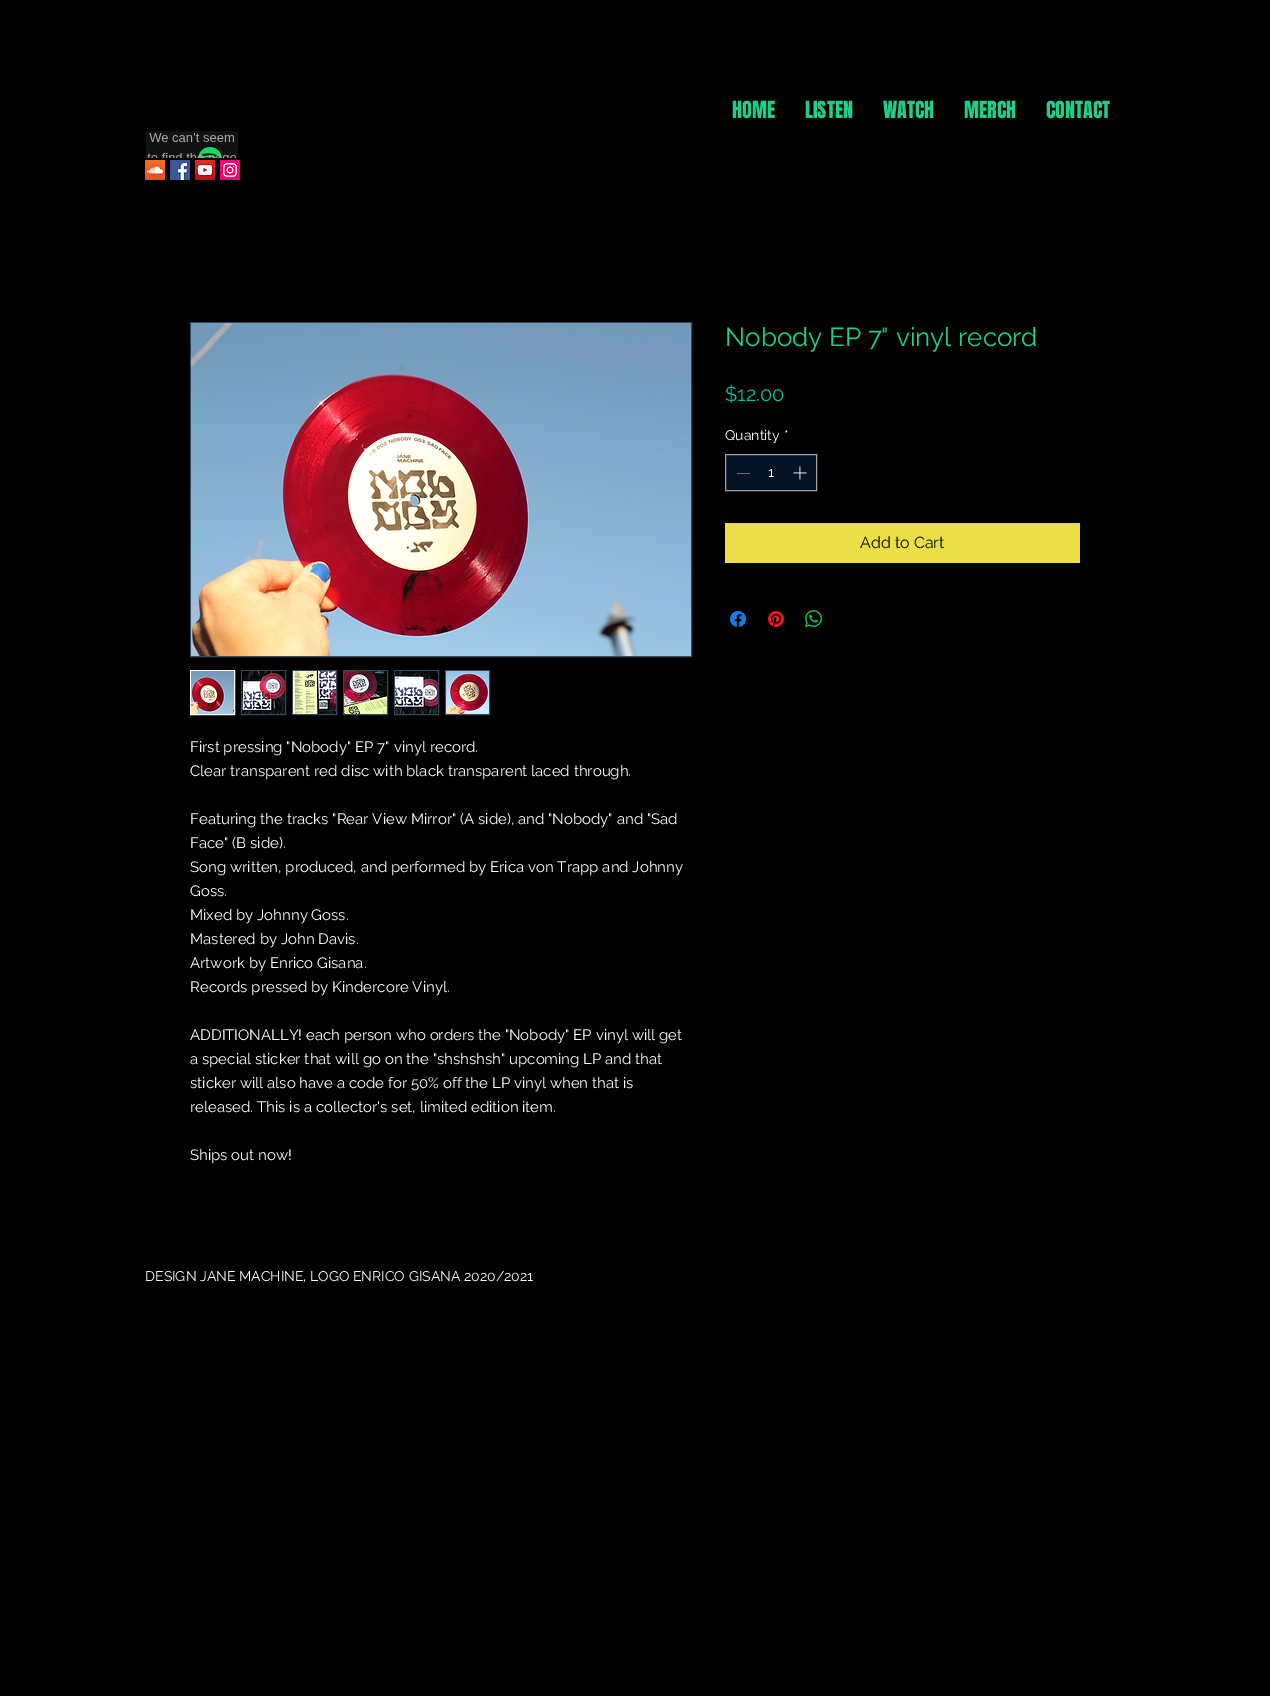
%!PS
<< /PageSize [1270 1696] >> setpagedevice
/m/moveto load def
/l/rlineto load def
/z/closepath load def
/f/fill load def
/s/stroke load def
/q/gsave load def
/Q_/grestore load def
/C { dup -16 bitshift 255 div exch dup -8 bitshift 255 and 255 div exch 255 and 255 div setrgbcolor } def
/F { [ exch dup neg 0 0 3 -1 roll 0 0 ] selectfont } def
/T { moveto show } def
/R { rectfill } def
/I { 5 dict begin { /h /w /y /x /name } { exch def } forall
  gsave x y translate w h scale
  w h 8 [w 0 0 h 0 0] name (r) file false 3 colorimage grestore end } def
0 1696 translate 1 -1 scale
4 setmiterlimit
16#000000 C
0 0 1270 1696 R
/Anton-Regular 20 F
16#20CE88 C
(HOME) 732 118 T
(LISTEN) 805 118 T
(WATCH) 883 118 T
(MERCH) 964 118 T
(CONTACT) 1046 118 T
(1.rgb) 146 131 92 27 I
(2.rgb) 145 160 20 20 I
(3.rgb) 170 160 20 20 I
(4.rgb) 195 160 20 20 I
(5.rgb) 220 160 20 20 I
/Raleway-Regular 26 F
(Nobody EP 7" vinyl record) 725 346 T
/Raleway-Regular 20 F
16#06BF9D C
($12.00) 725 401 T
/Raleway-Regular 14 F
16#FFFFFF C
(Quantity) 725 440 T
(*) 784 440 T
16#041324 C
725.5 454.5 m 91 0 l 0 36 l -91 0 l z q f Q_
16#9BA1A7 C
s
16#666D76 C
737 473 13 1 R
16#FFFFFF C
(1) 768 477 T
(6.rgb) 793 466 14 14 I
16#EBDE46 C
725 523 355 40 R
/Raleway-Regular 16 F
16#041324 C
(Add to Cart) 860 548 T
(7.rgb) 730 611 16 16 I
(8.rgb) 768 611 16 16 I
(9.rgb) 805 610 17 17 I
16#35495E C
190.5 322.5 501 334 rectstroke
(10.rgb) 191 323 500 333 I
16#FFFFFF C
190.5 670.5 44 44 rectstroke
(11.rgb) 191 671 43 43 I
16#35495E C
241.5 670.5 44 44 rectstroke
(12.rgb) 242 671 43 43 I
292.5 670.5 44 44 rectstroke
(13.rgb) 293 671 43 43 I
343.5 670.5 44 44 rectstroke
(14.rgb) 344 671 43 43 I
394.5 670.5 44 44 rectstroke
(15.rgb) 395 671 43 43 I
445.5 670.5 44 44 rectstroke
(16.rgb) 446 671 43 43 I
/Raleway-Regular 15 F
16#FFFFFF C
(First pressing "Nobody" EP 7" vinyl record.) 190 752 T
(Clear transparent red disc with black transparent laced through.) 190 776 T
(Featuring the tracks "Rear View Mirror" \(A side\), and "Nobody" and "Sad) 190 824 T
(Face" \(B side\).) 190 848 T
(Song written, produced, and performed by Erica von Trapp and Johnny) 190 872 T
(Goss.) 190 896 T
(Mixed by Johnny Goss.) 190 920 T
(Mastered by John Davis.) 190 944 T
(Artwork by Enrico Gisana.) 190 968 T
(Records pressed by Kindercore Vinyl.) 190 992 T
(ADDITIONALLY! each person who orders the "Nobody" EP vinyl will get) 190 1040 T
(a special sticker that will go on the "shshshsh" upcoming LP and that) 190 1064 T
(sticker will also have a code for 50% off the LP vinyl when that is) 190 1088 T
(released. This is a collector's set, limited edition item.) 190 1112 T
(Ships out now!) 190 1160 T
/Raleway-Regular 14 F
(DESIGN JANE MACHINE, LOGO ENRICO GISANA 2020/2021) 145 1281 T
showpage
